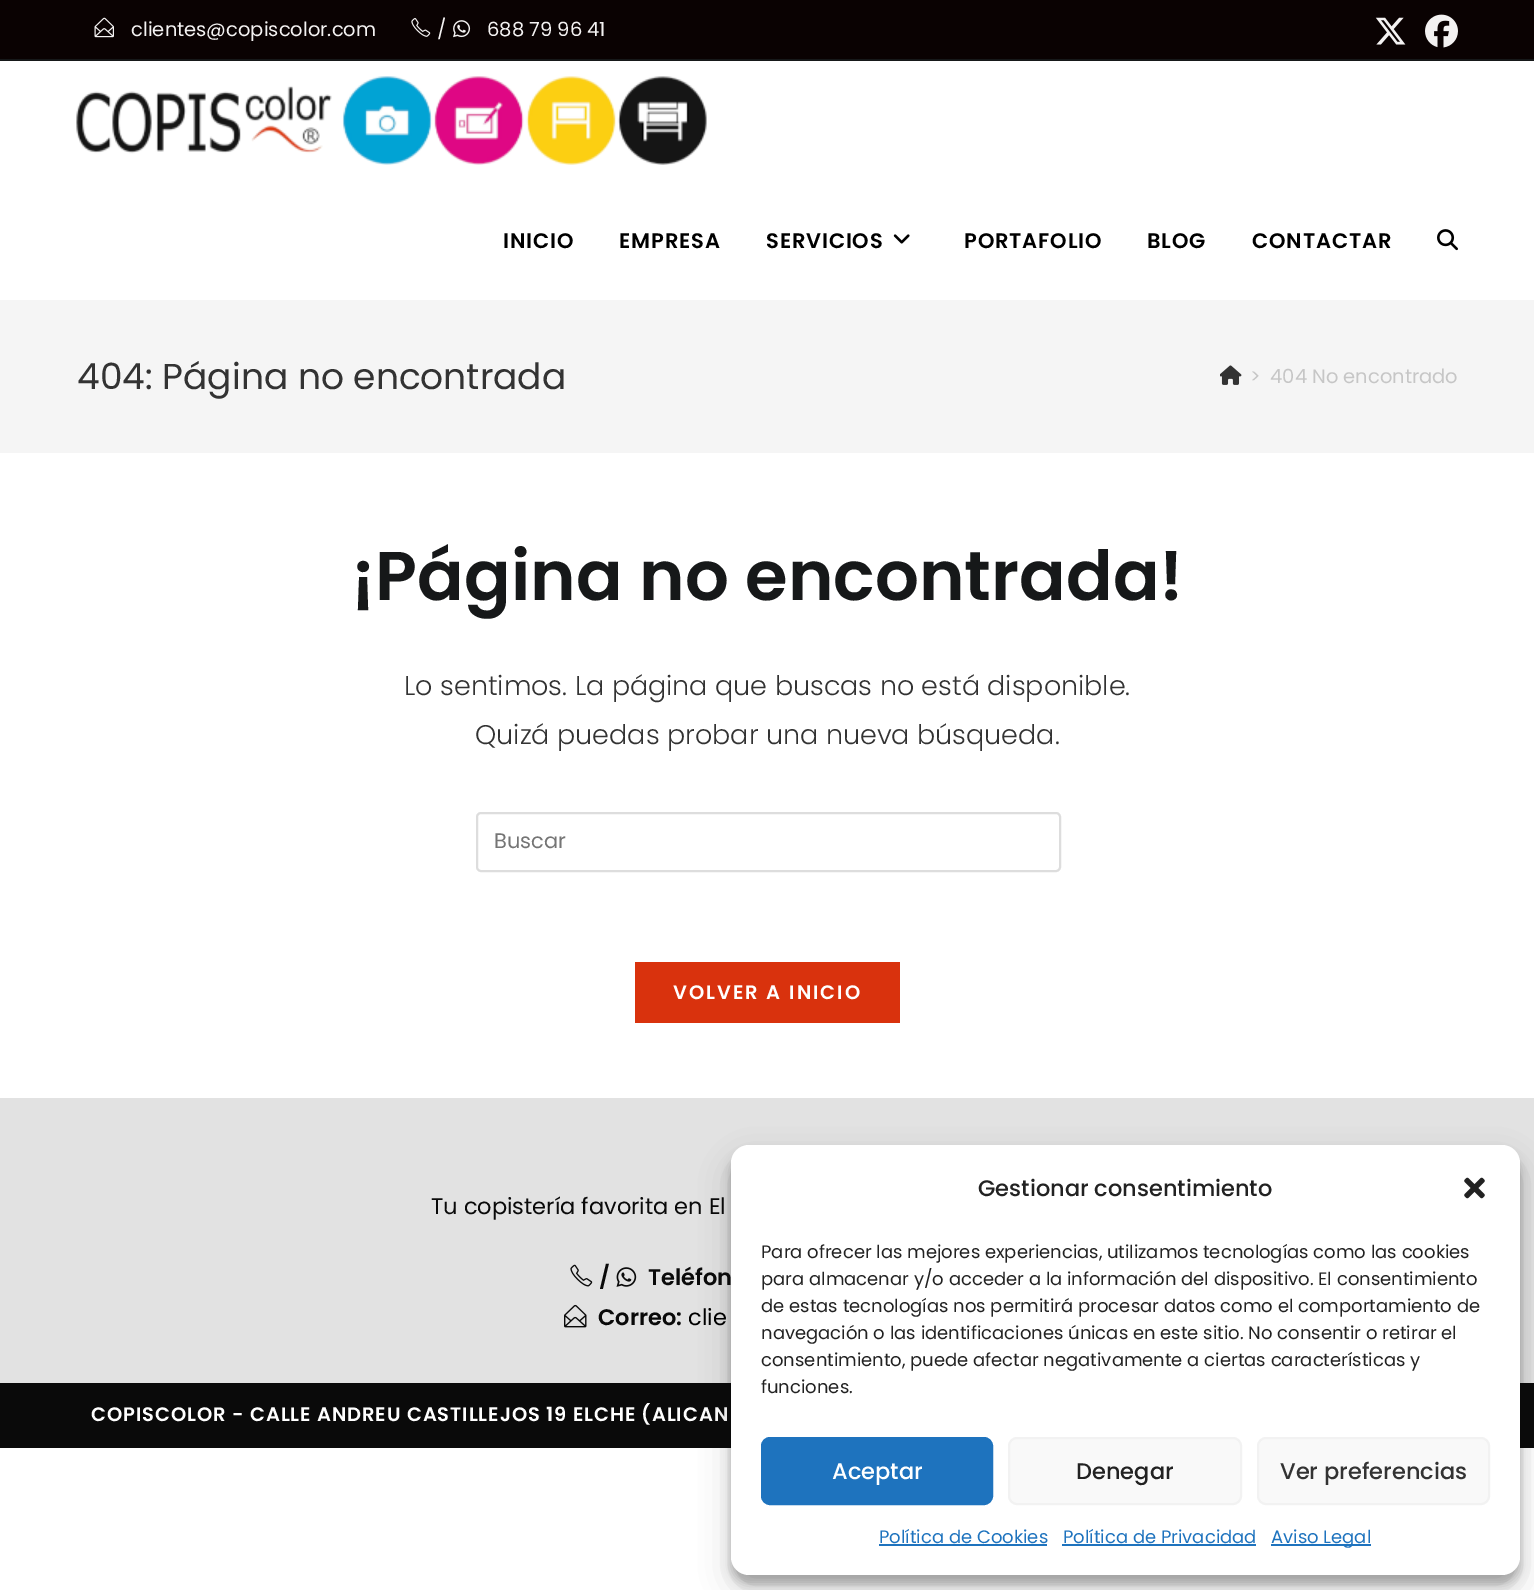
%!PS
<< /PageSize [1534 1590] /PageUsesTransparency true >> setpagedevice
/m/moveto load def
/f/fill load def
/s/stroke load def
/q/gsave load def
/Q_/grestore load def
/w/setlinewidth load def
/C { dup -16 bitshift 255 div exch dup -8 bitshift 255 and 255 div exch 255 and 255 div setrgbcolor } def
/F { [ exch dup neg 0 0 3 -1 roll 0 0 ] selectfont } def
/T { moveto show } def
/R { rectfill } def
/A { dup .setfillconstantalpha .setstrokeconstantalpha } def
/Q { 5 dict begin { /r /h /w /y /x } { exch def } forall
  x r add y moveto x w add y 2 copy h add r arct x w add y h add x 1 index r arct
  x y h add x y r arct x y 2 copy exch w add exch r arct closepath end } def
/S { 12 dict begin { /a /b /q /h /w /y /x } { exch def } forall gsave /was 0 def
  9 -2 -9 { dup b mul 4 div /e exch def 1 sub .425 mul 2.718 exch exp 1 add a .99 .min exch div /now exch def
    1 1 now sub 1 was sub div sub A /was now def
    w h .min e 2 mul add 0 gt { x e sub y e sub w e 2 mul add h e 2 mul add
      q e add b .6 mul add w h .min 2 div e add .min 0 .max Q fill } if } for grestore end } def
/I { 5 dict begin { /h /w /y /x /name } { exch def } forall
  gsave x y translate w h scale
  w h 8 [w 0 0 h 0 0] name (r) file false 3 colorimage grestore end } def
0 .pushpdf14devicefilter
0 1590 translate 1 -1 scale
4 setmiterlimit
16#FFFFFF C
0 0 1534 1590 R
16#0A0202 C
0 0 1534 59 R
16#161819 C
0 59 1534 2 R
(1.rgb) 94 17 20 21 I
/Poppins-Regular 19.5 F
16#F4F2F2 C
(clientes@copiscolor.com) 131 36 T
(2.rgb) 411 18 20 19 I
(/) 437 36 T
(3.rgb) 453 20 18 18 I
(688 79 96 41) 487 36 T
(4.rgb) 1375 17 31 28 I
(5.rgb) 1425 14 33 34 I
(6.rgb) 76 76 631 89 I
/Poppins-SemiBold 21 F
16#000000 C
503 248 m .9 0 (INICIO) ashow
619 248 m .9 0 (EMPRESA) ashow
766 248 m .9 0 (SERVICIOS) ashow
(7.rgb) 893 234 17 10 I
964 248 m .9 0 (PORTAFOLIO) ashow
1147 248 m .9 0 (BLOG) ashow
1252 248 m .9 0 (CONTACTAR) ashow
(8.rgb) 1437 229 21 22 I
16#F5F5F5 C
0 300 1534 153 R
/Poppins-Regular 36 F
16#333333 C
(404: Página no encontrada) 77 389 T
(9.rgb) 1220 365 22 20 I
/Poppins-Regular 19.5 F
16#C6C6C6 C
(>) 1250 383 T
(404 No encontrado) 1270 383 T
/Poppins-SemiBold 69 F
16#161819 C
(¡Página no encontrada!) 351 600 T
/Poppins-Light 27 F
16#333333 C
(Lo sentimos. La página que buscas no está disponible.) 404 695 T
(Quizá puedas probar una nueva búsqueda.) 475 744 T
16#DDDDDD C
2 w
477 813 583 58 4 Q s
/Poppins-Regular 21 F
16#757575 C
(Buscar) 494 848 T
16#D9320D C
635 962 265 61 R
/Poppins-SemiBold 19.5 F
16#FFFFFF C
673 999 m 2 0 (VOLVER A INICIO) ashow
16#E2E2E2 C
0 1098 1534 285 R
/Poppins-Regular 22.5 F
16#0A0A0A C
(Tu copistería favorita en El) 431 1214 T
(10.rgb) 570 1264 23 23 I
/Poppins-SemiBold 22.5 F
(/) 599 1285 T
(11.rgb) 616 1267 21 20 I
(Teléfon) 648 1285 T
(12.rgb) 564 1304 23 24 I
(Correo:) 598 1325 T
/Poppins-Regular 22.5 F
16#000000 C
(clie) 688 1325 T
16#0A0A0A C
0 1383 1534 65 R
/Poppins-SemiBold 19.5 F
16#FFFFFF C
91 1421 m .9 0 (COPISCOLOR - CALLE ANDREU CASTILLEJOS 19 ELCHE \(ALICAN) ashow
16#000000 C
731 1154 789 430 18 4.5 .23 S
731 1160 789 430 18 15 .19 S
16#FFFFFF C
731 1145 789 430 18 Q f
/Poppins-Medium 22.5 F
16#222222 C
(Gestionar consentimiento) 978 1196 T
(13.rgb) 1464 1177 21 22 I
/Poppins-Regular 18 F
(Para ofrecer las mejores experiencias, utilizamos tecnologías como las cookies) 761 1258 T
(para almacenar y/o acceder a la información del dispositivo. El consentimiento) 761 1285 T
(de estas tecnologías nos permitirá procesar datos como el comportamiento de) 761 1312 T
(navegación o las identificaciones únicas en este sitio. No consentir o retirar el) 761 1339 T
(consentimiento, puede afectar negativamente a ciertas características y) 761 1366 T
(funciones.) 761 1393 T
16#1E73BE C
762 1438 230 66 8 Q q f Q_
s
/Poppins-Medium 22.5 F
16#FFFFFF C
(Aceptar) 832 1479 T
16#F9F9F9 C
1009 1438 232 66 8 Q q f Q_
16#F2F2F2 C
s
16#222222 C
(Denegar) 1076 1479 T
16#F9F9F9 C
1258 1438 231 66 8 Q q f Q_
16#F2F2F2 C
s
16#333333 C
(Ver preferencias) 1280 1479 T
/Poppins-Regular 18 F
16#1E73BE C
(Política de Cookies) 879 1543 T
879 1544 168 2 R
(Política de Privacidad) 1063 1543 T
1062 1544 194 2 R
1271 1544 100 2 R
(Aviso Legal) 1271 1543 T
.poppdf14devicefilter showpage
